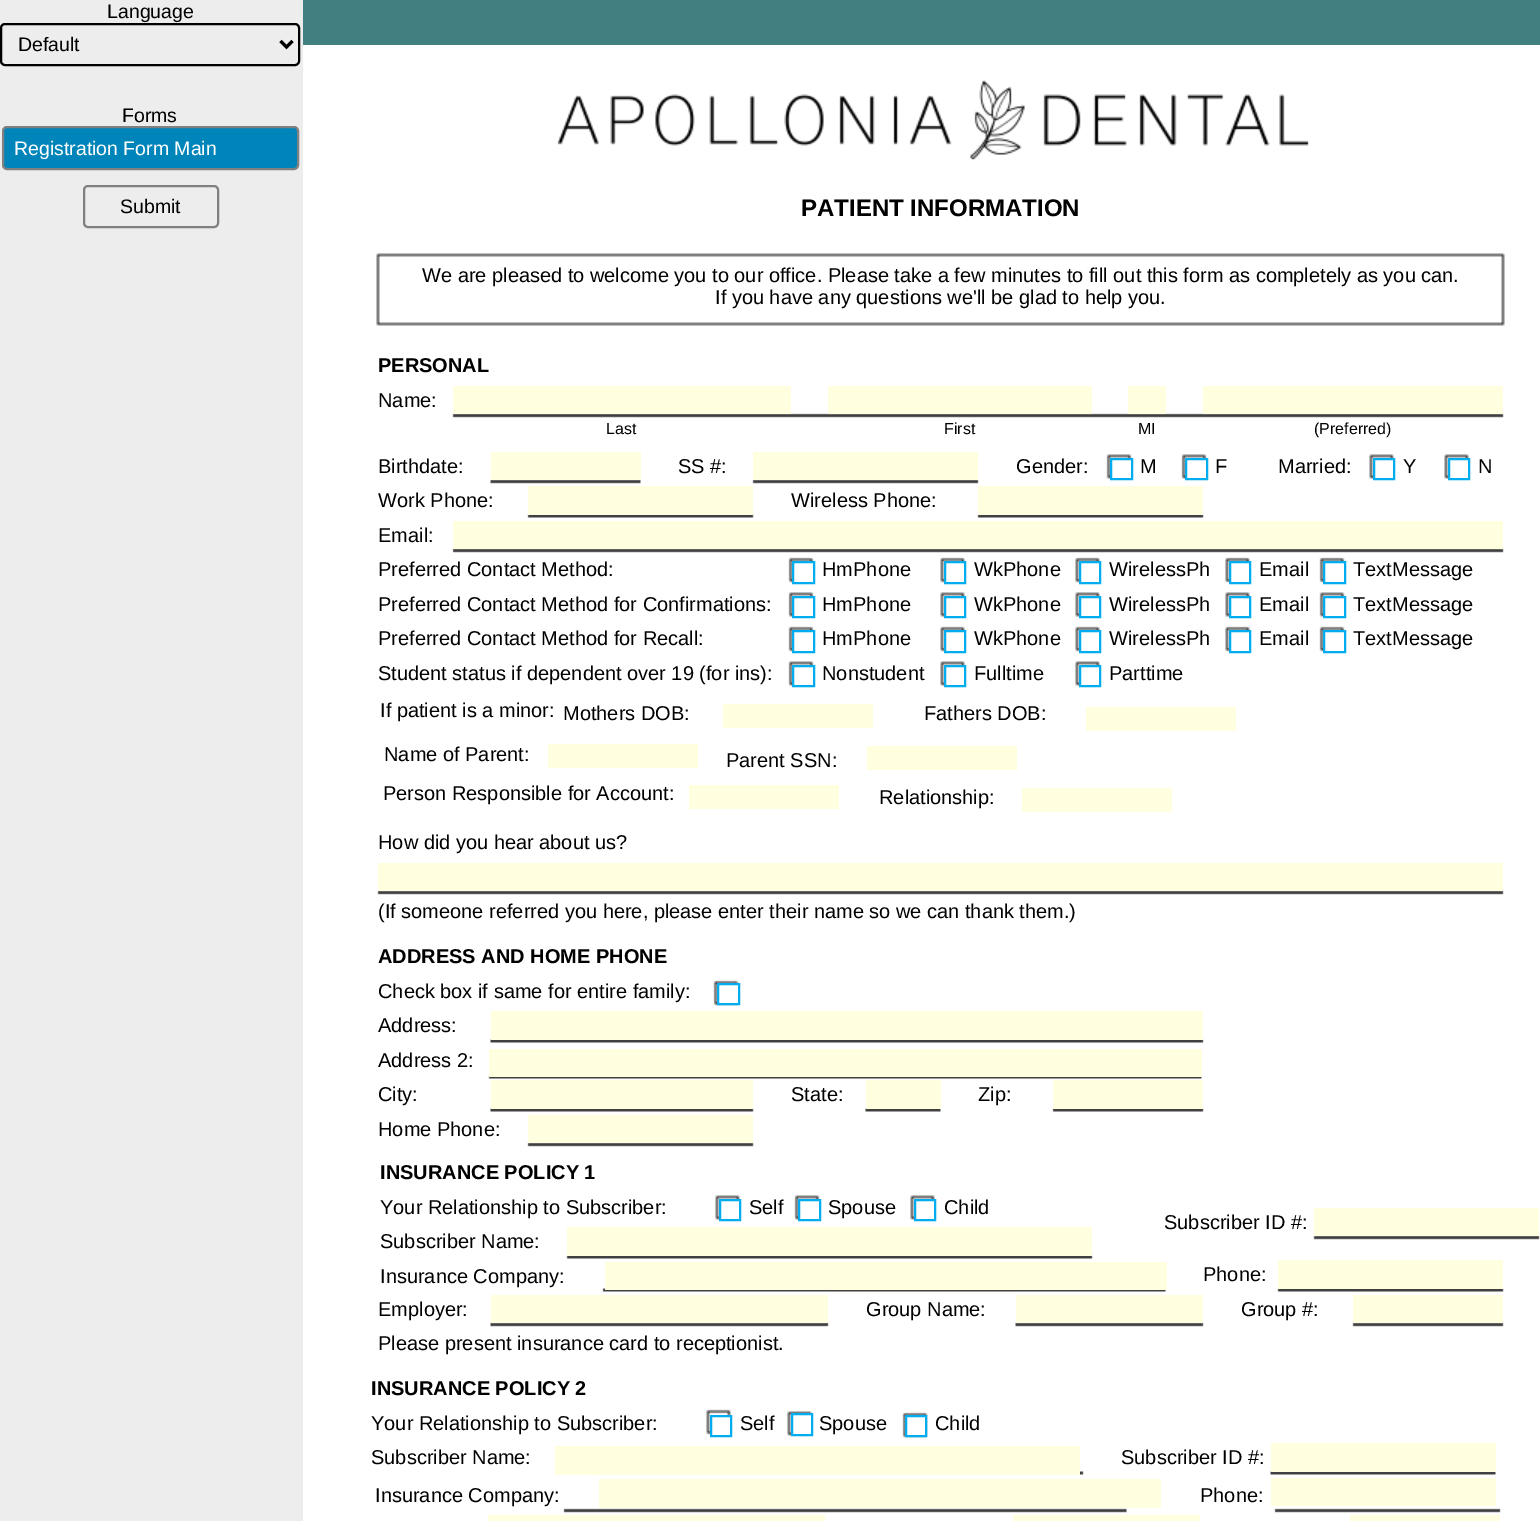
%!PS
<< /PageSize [1540 1521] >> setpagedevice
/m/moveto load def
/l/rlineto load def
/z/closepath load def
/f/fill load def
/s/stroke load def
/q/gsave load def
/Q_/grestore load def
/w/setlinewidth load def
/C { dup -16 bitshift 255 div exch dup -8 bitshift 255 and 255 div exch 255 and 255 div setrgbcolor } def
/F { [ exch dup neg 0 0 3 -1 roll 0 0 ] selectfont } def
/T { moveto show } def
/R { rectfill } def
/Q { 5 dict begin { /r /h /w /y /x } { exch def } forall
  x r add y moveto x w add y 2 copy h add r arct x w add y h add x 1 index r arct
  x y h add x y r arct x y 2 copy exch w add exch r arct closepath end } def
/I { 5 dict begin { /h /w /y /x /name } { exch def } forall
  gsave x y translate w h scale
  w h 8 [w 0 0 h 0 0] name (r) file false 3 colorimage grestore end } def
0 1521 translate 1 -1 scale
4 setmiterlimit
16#EDEDED C
0 0 1540 1521 R
/LiberationSans-Regular 19.5 F
16#000000 C
(Language) 107 18 T
2 w
1 24 298 41 4 Q s
3 w
280.5 41 m 6 6 l 6 -6 l s
(Default) 18 51 T
(Forms) 122 122 T
16#0085BA C
3 127 295 42 4 Q q f Q_
16#808080 C
2 w
s
16#FFFFFF C
(Registration Form Main) 14 155 T
16#808080 C
84 186 134 41 4 Q s
16#000000 C
(Submit) 120 213 T
16#408080 C
303 0 1237 45 R
16#FFFFFF C
303 45 1237 1476 R
(1.rgb) 376 80 1164 1433 I
/LiberationSans-Bold 24 F
16#000000 C
(PATIENT INFORMATION) 801 216 T
/LiberationSans-Regular 20 F
(We are pleased to welcome you to our office. Please take a few minutes to fill out this form as completely as you can.) 422 282 T
(If you have any questions we'll be glad to help you.) 715 304 T
/LiberationSans-Bold 20 F
(PERSONAL) 378 372 T
/LiberationSans-Regular 20 F
(Name:) 378 407 T
16#FFFFE0 C
453 386 338 28 R
828 386 264 28 R
1128 386 38 28 R
1203 386 300 28 R
/LiberationSans-Regular 16 F
16#000000 C
(Last) 606 434 T
(First) 944 434 T
(MI) 1138 434 T
(\(Preferred\)) 1314 434 T
/LiberationSans-Regular 20 F
(Birthdate:) 378 473 T
16#FFFFE0 C
491 452 150 28 R
16#000000 C
(SS #:) 678 473 T
16#FFFFE0 C
753 452 225 28 R
16#000000 C
(Gender:) 1016 473 T
16#FFFFFF C
1111 459 m 21 0 l 0 20 l -21 0 l z q f Q_
16#00ADEE C
s
16#000000 C
(M) 1140 473 T
16#FFFFFF C
1186 459 m 21 0 l 0 20 l -21 0 l z q f Q_
16#00ADEE C
s
16#000000 C
(F) 1215 473 T
(Married:) 1278 473 T
16#FFFFFF C
1374 459 m 20 0 l 0 20 l -20 0 l z q f Q_
16#00ADEE C
s
16#000000 C
(Y) 1403 473 T
16#FFFFFF C
1449 459 m 20 0 l 0 20 l -20 0 l z q f Q_
16#00ADEE C
s
16#000000 C
(N) 1478 473 T
(Work Phone:) 378 507 T
16#FFFFE0 C
528 486 225 29 R
16#000000 C
(Wireless Phone:) 791 507 T
16#FFFFE0 C
978 486 225 29 R
16#000000 C
(Email:) 378 542 T
16#FFFFE0 C
453 521 1050 28 R
16#000000 C
(Preferred Contact Method:) 378 576 T
16#FFFFFF C
793 562 m 21 0 l 0 21 l -21 0 l z q f Q_
16#00ADEE C
s
16#000000 C
(HmPhone) 822 576 T
16#FFFFFF C
945 562 m 20 0 l 0 21 l -20 0 l z q f Q_
16#00ADEE C
s
16#000000 C
(WkPhone) 974 576 T
16#FFFFFF C
1080 562 m 20 0 l 0 21 l -20 0 l z q f Q_
16#00ADEE C
s
16#000000 C
(WirelessPh) 1109 576 T
16#FFFFFF C
1230 562 m 20 0 l 0 21 l -20 0 l z q f Q_
16#00ADEE C
s
16#000000 C
(Email) 1259 576 T
16#FFFFFF C
1324 562 m 21 0 l 0 21 l -21 0 l z q f Q_
16#00ADEE C
s
16#000000 C
(TextMessage) 1353 576 T
(Preferred Contact Method for Confirmations:) 378 611 T
16#FFFFFF C
793 597 m 21 0 l 0 20 l -21 0 l z q f Q_
16#00ADEE C
s
16#000000 C
(HmPhone) 822 611 T
16#FFFFFF C
945 597 m 20 0 l 0 20 l -20 0 l z q f Q_
16#00ADEE C
s
16#000000 C
(WkPhone) 974 611 T
16#FFFFFF C
1080 597 m 20 0 l 0 20 l -20 0 l z q f Q_
16#00ADEE C
s
16#000000 C
(WirelessPh) 1109 611 T
16#FFFFFF C
1230 597 m 20 0 l 0 20 l -20 0 l z q f Q_
16#00ADEE C
s
16#000000 C
(Email) 1259 611 T
16#FFFFFF C
1324 597 m 21 0 l 0 20 l -21 0 l z q f Q_
16#00ADEE C
s
16#000000 C
(TextMessage) 1353 611 T
(Preferred Contact Method for Recall:) 378 645 T
16#FFFFFF C
793 631 m 21 0 l 0 21 l -21 0 l z q f Q_
16#00ADEE C
s
16#000000 C
(HmPhone) 822 645 T
16#FFFFFF C
945 631 m 20 0 l 0 21 l -20 0 l z q f Q_
16#00ADEE C
s
16#000000 C
(WkPhone) 974 645 T
16#FFFFFF C
1080 631 m 20 0 l 0 21 l -20 0 l z q f Q_
16#00ADEE C
s
16#000000 C
(WirelessPh) 1109 645 T
16#FFFFFF C
1230 631 m 20 0 l 0 21 l -20 0 l z q f Q_
16#00ADEE C
s
16#000000 C
(Email) 1259 645 T
16#FFFFFF C
1324 631 m 21 0 l 0 21 l -21 0 l z q f Q_
16#00ADEE C
s
16#000000 C
(TextMessage) 1353 645 T
(Student status if dependent over 19 \(for ins\):) 378 680 T
16#FFFFFF C
793 666 m 21 0 l 0 20 l -21 0 l z q f Q_
16#00ADEE C
s
16#000000 C
(Nonstudent) 822 680 T
16#FFFFFF C
945 666 m 20 0 l 0 20 l -20 0 l z q f Q_
16#00ADEE C
s
16#000000 C
(Fulltime) 974 680 T
16#FFFFFF C
1080 666 m 20 0 l 0 20 l -20 0 l z q f Q_
16#00ADEE C
s
16#000000 C
(Parttime) 1109 680 T
(If patient is a minor:) 380 717 T
(Mothers DOB:) 563 720 T
16#FFFFE0 C
723 704 150 24 R
16#000000 C
(Fathers DOB:) 924 720 T
16#FFFFE0 C
1086 707 150 24 R
16#000000 C
(Name of Parent:) 384 761 T
16#FFFFE0 C
548 744 150 24 R
16#000000 C
(Parent SSN:) 726 767 T
16#FFFFE0 C
867 746 150 24 R
16#000000 C
(Person Responsible for Account:) 383 800 T
16#FFFFE0 C
689 785 150 24 R
16#000000 C
(Relationship:) 879 804 T
16#FFFFE0 C
1022 788 150 24 R
16#000000 C
(How did you hear about us?) 378 849 T
16#FFFFE0 C
378 863 1125 28 R
16#000000 C
(\(If someone referred you here, please enter their name so we can thank them.\)) 378 918 T
/LiberationSans-Bold 20 F
(ADDRESS AND HOME PHONE) 378 963 T
/LiberationSans-Regular 20 F
(Check box if same for entire family:) 378 998 T
16#FFFFFF C
718 984 m 21 0 l 0 20 l -21 0 l z q f Q_
16#00ADEE C
s
16#000000 C
(Address:) 378 1032 T
16#FFFFE0 C
491 1011 712 29 R
16#000000 C
(Address 2:) 378 1067 T
16#FFFFE0 C
489 1049 713 28 R
16#000000 C
(City:) 378 1101 T
16#FFFFE0 C
491 1080 262 29 R
16#000000 C
(State:) 791 1101 T
16#FFFFE0 C
866 1080 75 29 R
16#000000 C
(Zip:) 978 1101 T
16#FFFFE0 C
1053 1080 150 29 R
16#000000 C
(Home Phone:) 378 1136 T
16#FFFFE0 C
528 1115 225 28 R
/LiberationSans-Bold 20 F
16#000000 C
(INSURANCE POLICY 1) 380 1179 T
/LiberationSans-Regular 20 F
(Your Relationship to Subscriber:) 380 1214 T
16#FFFFFF C
720 1200 m 20 0 l 0 20 l -20 0 l z q f Q_
16#00ADEE C
s
16#000000 C
(Self) 749 1214 T
16#FFFFFF C
799 1200 m 21 0 l 0 20 l -21 0 l z q f Q_
16#00ADEE C
s
16#000000 C
(Spouse) 828 1214 T
16#FFFFFF C
915 1200 m 20 0 l 0 20 l -20 0 l z q f Q_
16#00ADEE C
s
16#000000 C
(Child) 944 1214 T
(Subscriber ID #:) 1164 1229 T
16#FFFFE0 C
1314 1208 225 28 R
16#000000 C
(Subscriber Name:) 380 1248 T
16#FFFFE0 C
567 1227 525 29 R
16#000000 C
(Insurance Company:) 380 1283 T
16#FFFFE0 C
605 1262 562 28 R
16#000000 C
(Phone:) 1203 1281 T
16#FFFFE0 C
1278 1260 225 29 R
16#000000 C
(Employer:) 378 1316 T
16#FFFFE0 C
491 1295 337 28 R
16#000000 C
(Group Name:) 866 1316 T
16#FFFFE0 C
1016 1295 187 28 R
16#000000 C
(Group #:) 1241 1316 T
16#FFFFE0 C
1353 1295 150 28 R
16#000000 C
(Please present insurance card to receptionist.) 378 1350 T
/LiberationSans-Bold 20 F
(INSURANCE POLICY 2) 371 1395 T
/LiberationSans-Regular 20 F
(Your Relationship to Subscriber:) 371 1430 T
16#FFFFFF C
711 1416 m 20 0 l 0 20 l -20 0 l z q f Q_
16#00ADEE C
s
16#000000 C
(Self) 740 1430 T
16#FFFFFF C
792 1414 m 20 0 l 0 21 l -20 0 l z q f Q_
16#00ADEE C
s
16#000000 C
(Spouse) 819 1430 T
16#FFFFFF C
906 1416 m 20 0 l 0 20 l -20 0 l z q f Q_
16#00ADEE C
s
16#000000 C
(Child) 935 1430 T
(Subscriber Name:) 371 1464 T
16#FFFFE0 C
555 1446 525 29 R
16#000000 C
(Subscriber ID #:) 1121 1464 T
16#FFFFE0 C
1271 1443 225 29 R
16#000000 C
(Insurance Company:) 375 1502 T
16#FFFFE0 C
599 1479 562 29 R
16#000000 C
(Phone:) 1200 1502 T
16#FFFFE0 C
1271 1478 225 28 R
488 1515 337 6 R
1013 1515 187 6 R
1350 1515 150 6 R
showpage
